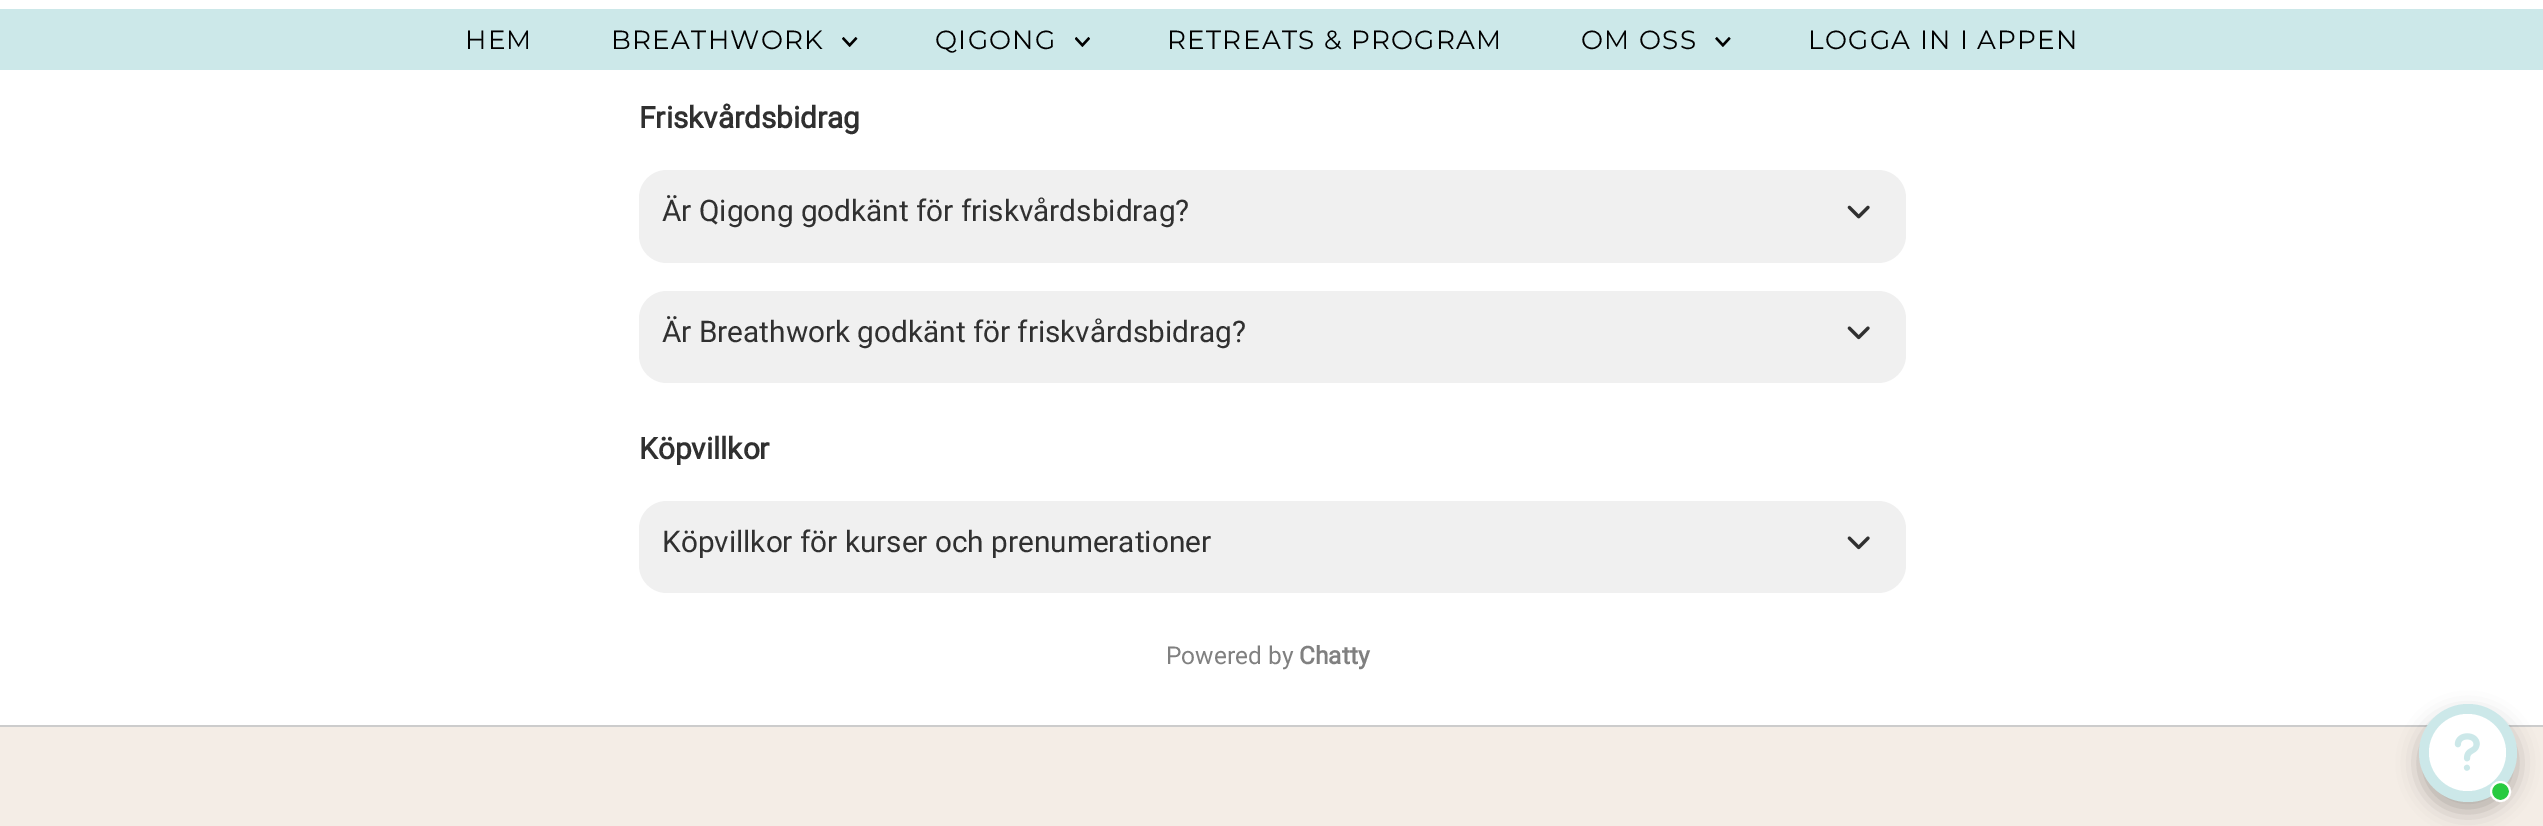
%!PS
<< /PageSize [2543 826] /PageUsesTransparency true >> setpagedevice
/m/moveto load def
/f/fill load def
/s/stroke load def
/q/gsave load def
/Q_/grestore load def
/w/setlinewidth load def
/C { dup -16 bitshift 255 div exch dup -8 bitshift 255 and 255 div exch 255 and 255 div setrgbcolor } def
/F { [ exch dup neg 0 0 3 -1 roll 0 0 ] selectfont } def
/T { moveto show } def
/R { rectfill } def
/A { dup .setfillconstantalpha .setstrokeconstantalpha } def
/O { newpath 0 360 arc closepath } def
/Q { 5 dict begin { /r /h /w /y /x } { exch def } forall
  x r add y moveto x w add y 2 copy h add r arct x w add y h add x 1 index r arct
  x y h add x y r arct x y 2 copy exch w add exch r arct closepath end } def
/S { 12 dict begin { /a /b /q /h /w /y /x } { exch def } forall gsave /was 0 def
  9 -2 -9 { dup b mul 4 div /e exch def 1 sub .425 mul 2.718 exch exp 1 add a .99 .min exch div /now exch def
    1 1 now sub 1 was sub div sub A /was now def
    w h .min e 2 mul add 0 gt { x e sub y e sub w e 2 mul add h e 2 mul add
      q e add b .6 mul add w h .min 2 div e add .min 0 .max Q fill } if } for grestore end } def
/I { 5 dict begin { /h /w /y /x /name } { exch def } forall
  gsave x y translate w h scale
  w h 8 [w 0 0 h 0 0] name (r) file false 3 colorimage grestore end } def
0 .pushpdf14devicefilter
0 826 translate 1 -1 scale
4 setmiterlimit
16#FFFFFF C
0 0 2543 826 R
16#CCE8E9 C
0 9 2543 61 R
/Montserrat-Regular 26.25 F
16#000000 C
465 49 m 1.3 0 (HEM) ashow
611 49 m 1.3 0 (BREATHWORK) ashow
(1.rgb) 842 37 16 10 I
935 49 m 1.3 0 (QIGONG) ashow
(2.rgb) 1075 37 15 10 I
1167 49 m 1.3 0 (RETREATS & PROGRAM) ashow
1581 49 m 1.3 0 (OM OSS) ashow
(3.rgb) 1715 37 16 10 I
1808 49 m 1.3 0 (LOGGA IN I APPEN) ashow
/Roboto-Bold 29.75 F
16#303030 C
(Friskvårdsbidrag) 639 128 T
16#F0F0F0 C
639 170 1267 93 28 Q f
/Roboto-Regular 29.75 F
16#303030 C
(Är Qigong godkänt för friskvårdsbidrag?) 662 221 T
(4.rgb) 1847 205 23 14 I
16#F0F0F0 C
639 291 1267 92 28 Q f
16#303030 C
(Är Breathwork godkänt för friskvårdsbidrag?) 662 342 T
(5.rgb) 1847 326 23 14 I
/Roboto-Bold 29.75 F
(Köpvillkor) 639 459 T
16#F0F0F0 C
639 501 1267 92 28 Q f
/Roboto-Regular 29.75 F
16#303030 C
(Köpvillkor för kurser och prenumerationer) 662 552 T
(5.rgb) 1847 536 23 14 I
/Roboto-Regular 24.5 F
16#808080 C
(Powered by) 1166 664 T
/Roboto-Bold 24.5 F
(Chatty) 1299 664 T
16#F4EDE6 C
0 727 2543 99 R
16#CCCCCC C
0 725 2543 2 R
16#000000 C
2419 714 98 98 49 10.5 .25 S
16#CCE8E9 C
2468 753 49 O f
16#FFFFFF C
2467.5 752.5 38.5 O f
(6.rgb) 2454 733 26 38 I
16#27CA40 C
2500.5 791.5 9.5 O q f Q_
16#FFFFFF C
2 w
s
.poppdf14devicefilter showpage
